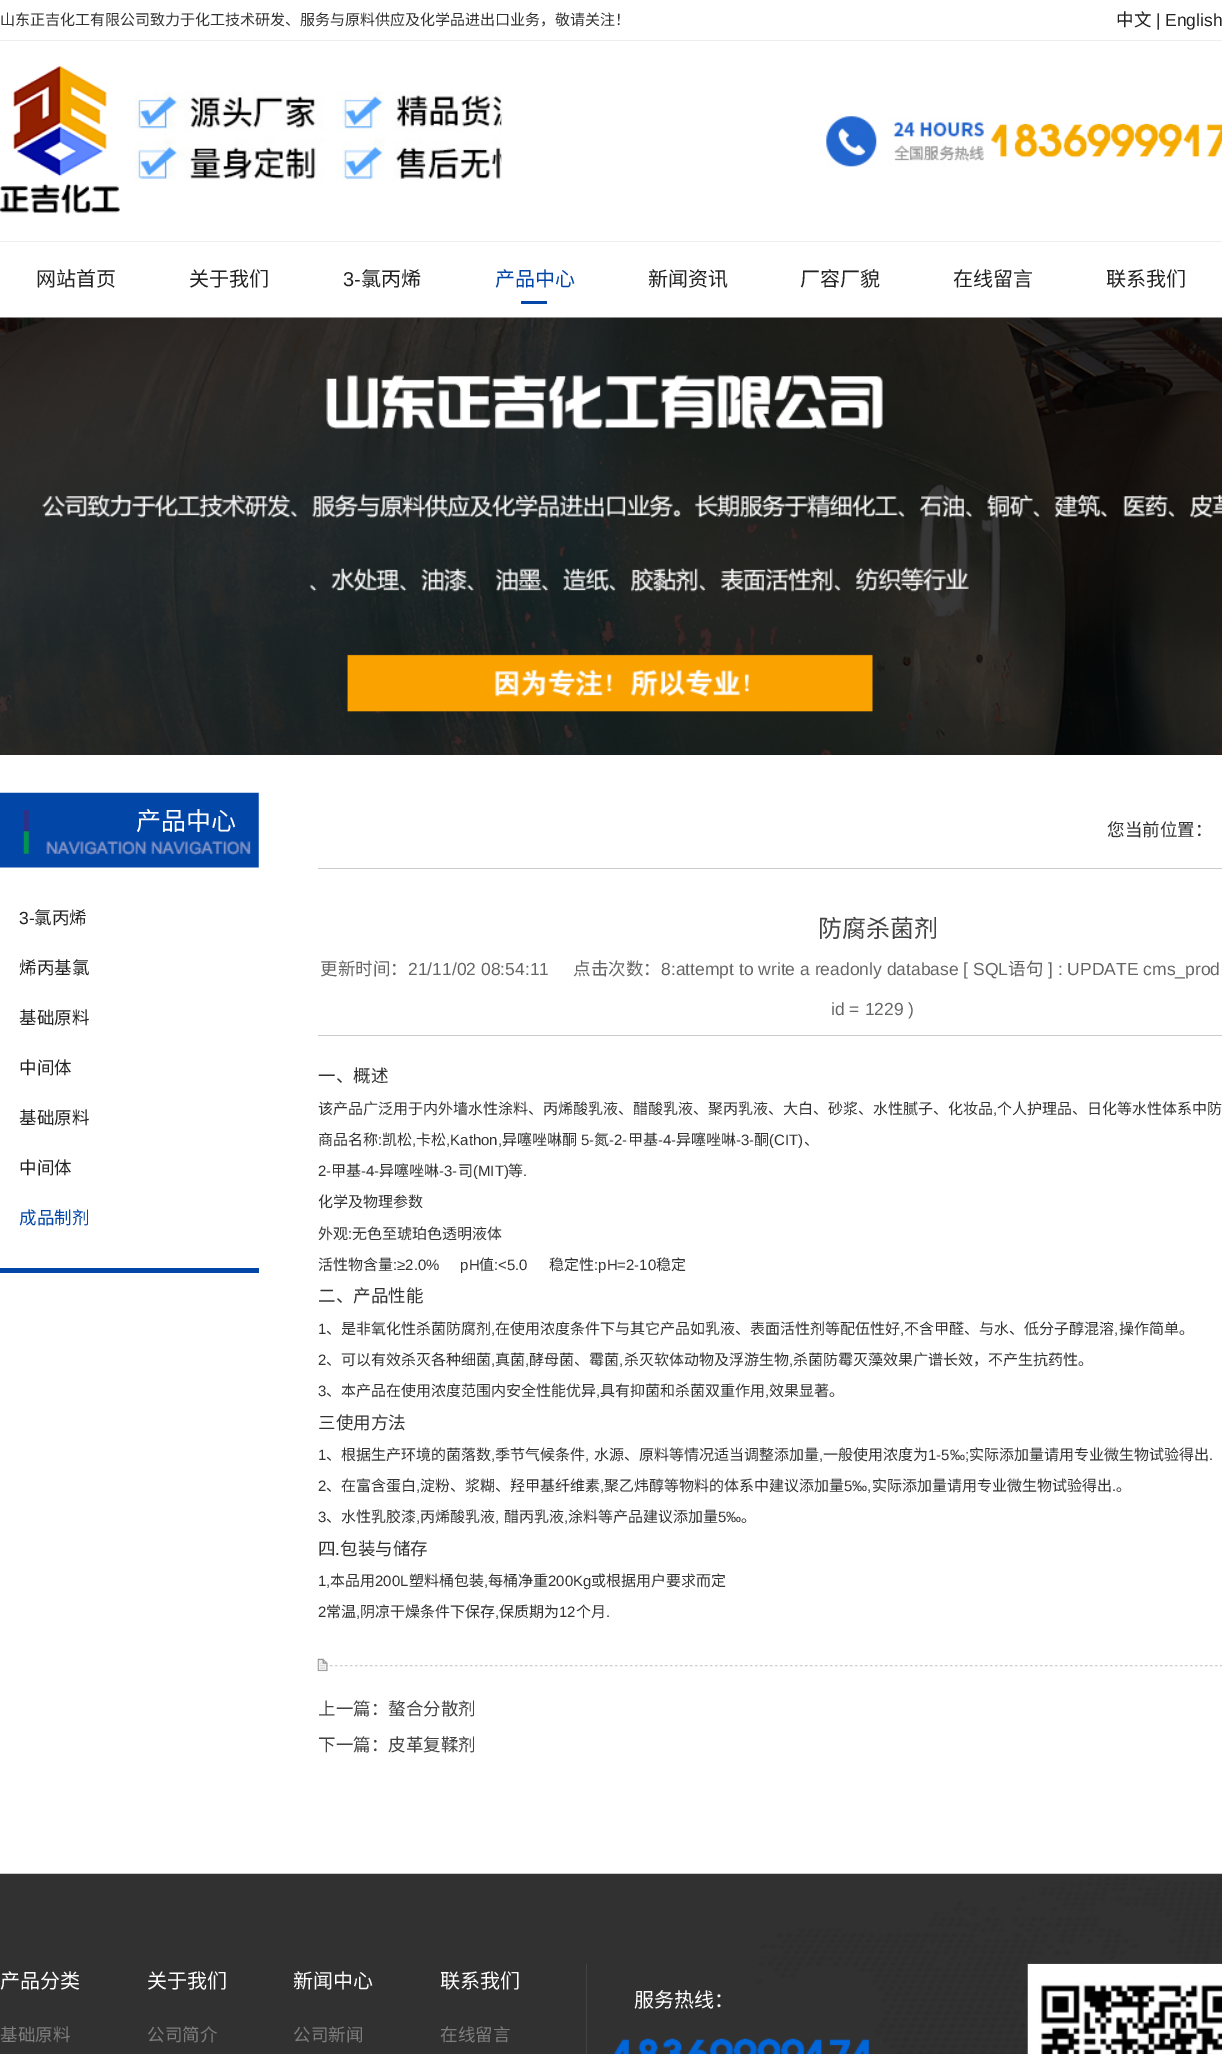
%!PS
<< /PageSize [1222 2054] >> setpagedevice
/C { dup -16 bitshift 255 div exch dup -8 bitshift 255 and 255 div exch 255 and 255 div setrgbcolor } def
/F { [ exch dup neg 0 0 3 -1 roll 0 0 ] selectfont } def
/T { moveto show } def
/R { rectfill } def
/I { 5 dict begin { /h /w /y /x /name } { exch def } forall
  gsave x y translate w h scale
  w h 8 [w 0 0 h 0 0] name (r) file false 3 colorimage grestore end } def
0 2054 translate 1 -1 scale
4 setmiterlimit
16#FFFFFF C
0 0 1222 2054 R
16#EEEEEE C
0 40 1222 1 R
/NotoSansCJKSC-Regular 15 F
16#343333 C
(山东正吉化工有限公司致力于化工技术研发、服务与原料供应及化学品进出口业务，敬请关注！) 0 25 T
/NotoSansCJKSC-Regular 17.5 F
16#222222 C
(中文) 1116 26 T
/LiberationSans-Regular 17.5 F
16#343333 C
(|) 1156 26 T
16#222222 C
(English) 1165 26 T
16#EEEEEE C
0 241 1222 1 R
(1.rgb) 0 66 120 148 I
(2.rgb) 135 91 367 90 I
(3.rgb) 826 116 158 51 I
(4.rgb) 991 123 231 35 I
/NotoSansCJKSC-Regular 20 F
16#222222 C
(网站首页) 36 286 T
(关于我们) 189 286 T
/LiberationSans-Regular 20 F
(3-) 343 286 T
/NotoSansCJKSC-Regular 20 F
(氯丙烯) 361 286 T
16#0246A7 C
521 301 26 3 R
(产品中心) 495 286 T
16#222222 C
(新闻资讯) 648 286 T
(厂容厂貌) 800 286 T
(在线留言) 953 286 T
(联系我们) 1106 286 T
(5.rgb) 0 317 1222 438 I
(6.rgb) 0 792 259 76 I
/NotoSansCJKSC-Regular 25 F
16#FFFFFF C
(产品中心) 136 830 T
16#0246A7 C
0 1268 259 5 R
/LiberationSans-Regular 17.5 F
16#222222 C
(3-) 19 924 T
/NotoSansCJKSC-Regular 17.5 F
(氯丙烯) 34 924 T
(烯丙基氯) 19 974 T
(基础原料) 19 1024 T
(中间体) 19 1074 T
(基础原料) 19 1124 T
(中间体) 19 1174 T
16#0246A7 C
(成品制剂) 19 1224 T
16#CCCCCC C
318 868 904 1 R
16#343333 C
(您当前位置：) 1107 836 T
/NotoSansCJKSC-Regular 24 F
16#444444 C
(防腐杀菌剂) 818 937 T
16#CCCCCC C
318 1035 904 1 R
/NotoSansCJKSC-Regular 17.5 F
16#666666 C
(更新时间：) 320 975 T
/LiberationSans-Regular 17.5 F
(21/11/02 08:54:11) 408 975 T
/NotoSansCJKSC-Regular 17.5 F
(点击次数：) 573 975 T
/LiberationSans-Regular 17.5 F
(8:attempt to write a readonly database [ SQL) 661 975 T
/NotoSansCJKSC-Regular 17.5 F
(语句) 1008 975 T
/LiberationSans-Regular 17.5 F
(] : UPDATE cms_prod) 1048 975 T
(id = 1229 \)) 831 1015 T
/NotoSansCJKSC-Regular 17.5 F
16#343333 C
(一、概述) 318 1082 T
/NotoSansCJKSC-Regular 15 F
(该产品广泛用于内外墙水性涂料、丙烯酸乳液、醋酸乳液、聚丙乳液、大白、砂浆、水性腻子、化妆品) 318 1114 T
/LiberationSans-Regular 15 F
(,) 993 1114 T
/NotoSansCJKSC-Regular 15 F
(个人护理品、日化等水性体系中防) 997 1114 T
(商品名称) 318 1145 T
/LiberationSans-Regular 15 F
(:) 378 1145 T
/NotoSansCJKSC-Regular 15 F
(凯松) 382 1145 T
/LiberationSans-Regular 15 F
(,) 412 1145 T
/NotoSansCJKSC-Regular 15 F
(卡松) 416 1145 T
/LiberationSans-Regular 15 F
(,Kathon,) 446 1145 T
/NotoSansCJKSC-Regular 15 F
(异噻唑啉酮) 502 1145 T
/LiberationSans-Regular 15 F
(5-) 581 1145 T
/NotoSansCJKSC-Regular 15 F
(氮) 594 1145 T
/LiberationSans-Regular 15 F
(-2-) 609 1145 T
/NotoSansCJKSC-Regular 15 F
(甲基) 628 1145 T
/LiberationSans-Regular 15 F
(-4-) 658 1145 T
/NotoSansCJKSC-Regular 15 F
(异噻唑啉) 676 1145 T
/LiberationSans-Regular 15 F
(-3-) 736 1145 T
/NotoSansCJKSC-Regular 15 F
(酮) 754 1145 T
/LiberationSans-Regular 15 F
(\(CIT\)) 769 1145 T
/NotoSansCJKSC-Regular 15 F
(、) 804 1145 T
/LiberationSans-Regular 15 F
(2-) 318 1176 T
/NotoSansCJKSC-Regular 15 F
(甲基) 331 1176 T
/LiberationSans-Regular 15 F
(-4-) 361 1176 T
/NotoSansCJKSC-Regular 15 F
(异噻唑啉) 379 1176 T
/LiberationSans-Regular 15 F
(-3-) 439 1176 T
/NotoSansCJKSC-Regular 15 F
(司) 458 1176 T
/LiberationSans-Regular 15 F
(\(MIT\)) 473 1176 T
/NotoSansCJKSC-Regular 15 F
(等) 508 1176 T
/LiberationSans-Regular 15 F
(.) 523 1176 T
/NotoSansCJKSC-Regular 15 F
(化学及物理参数) 318 1207 T
(外观) 318 1239 T
/LiberationSans-Regular 15 F
(:) 348 1239 T
/NotoSansCJKSC-Regular 15 F
(无色至琥珀色透明液体) 352 1239 T
(活性物含量) 318 1270 T
/LiberationSans-Regular 15 F
(:≥2.0%     pH) 393 1270 T
/NotoSansCJKSC-Regular 15 F
(值) 479 1270 T
/LiberationSans-Regular 15 F
(:<5.0) 494 1270 T
/NotoSansCJKSC-Regular 15 F
(稳定性) 549 1270 T
/LiberationSans-Regular 15 F
(:pH=2-10) 594 1270 T
/NotoSansCJKSC-Regular 15 F
(稳定) 656 1270 T
/NotoSansCJKSC-Regular 17.5 F
(二、产品性能) 318 1302 T
/LiberationSans-Regular 15 F
(1) 318 1334 T
/NotoSansCJKSC-Regular 15 F
(、是非氧化性杀菌防腐剂) 326 1334 T
/LiberationSans-Regular 15 F
(,) 491 1334 T
/NotoSansCJKSC-Regular 15 F
(在使用浓度条件下与其它产品如乳液、表面活性剂等配伍性好) 495 1334 T
/LiberationSans-Regular 15 F
(,) 900 1334 T
/NotoSansCJKSC-Regular 15 F
(不含甲醛、与水、低分子醇混溶) 904 1334 T
/LiberationSans-Regular 15 F
(,) 1114 1334 T
/NotoSansCJKSC-Regular 15 F
(操作简单。) 1119 1334 T
/LiberationSans-Regular 15 F
(2) 318 1365 T
/NotoSansCJKSC-Regular 15 F
(、可以有效杀灭各种细菌) 326 1365 T
/LiberationSans-Regular 15 F
(,) 491 1365 T
/NotoSansCJKSC-Regular 15 F
(真菌) 495 1365 T
/LiberationSans-Regular 15 F
(,) 525 1365 T
/NotoSansCJKSC-Regular 15 F
(酵母菌、霉菌) 529 1365 T
/LiberationSans-Regular 15 F
(,) 619 1365 T
/NotoSansCJKSC-Regular 15 F
(杀灭软体动物及浮游生物) 624 1365 T
/LiberationSans-Regular 15 F
(,) 789 1365 T
/NotoSansCJKSC-Regular 15 F
(杀菌防霉灭藻效果广谱长效，不产生抗药性。) 793 1365 T
/LiberationSans-Regular 15 F
(3) 318 1396 T
/NotoSansCJKSC-Regular 15 F
(、本产品在使用浓度范围内安全性能优异) 326 1396 T
/LiberationSans-Regular 15 F
(,) 596 1396 T
/NotoSansCJKSC-Regular 15 F
(具有抑菌和杀菌双重作用) 600 1396 T
/LiberationSans-Regular 15 F
(,) 765 1396 T
/NotoSansCJKSC-Regular 15 F
(效果显著。) 769 1396 T
/NotoSansCJKSC-Regular 17.5 F
(三使用方法) 318 1429 T
/LiberationSans-Regular 15 F
(1) 318 1460 T
/NotoSansCJKSC-Regular 15 F
(、根据生产环境的菌落数) 326 1460 T
/LiberationSans-Regular 15 F
(,) 491 1460 T
/NotoSansCJKSC-Regular 15 F
(季节气候条件) 495 1460 T
/LiberationSans-Regular 15 F
(,) 585 1460 T
/NotoSansCJKSC-Regular 15 F
(水源、原料等情况适当调整添加量) 594 1460 T
/LiberationSans-Regular 15 F
(,) 819 1460 T
/NotoSansCJKSC-Regular 15 F
(一般使用浓度为) 823 1460 T
/LiberationSans-Regular 15 F
(1-5‰;) 928 1460 T
/NotoSansCJKSC-Regular 15 F
(实际添加量请用专业微生物试验得出) 969 1460 T
/LiberationSans-Regular 15 F
(.) 1209 1460 T
(2) 318 1491 T
/NotoSansCJKSC-Regular 15 F
(、在富含蛋白) 326 1491 T
/LiberationSans-Regular 15 F
(,) 416 1491 T
/NotoSansCJKSC-Regular 15 F
(淀粉、浆糊、羟甲基纤维素) 420 1491 T
/LiberationSans-Regular 15 F
(,) 600 1491 T
/NotoSansCJKSC-Regular 15 F
(聚乙炜醇等物料的体系中建议添加量) 604 1491 T
/LiberationSans-Regular 15 F
(5‰,) 844 1491 T
/NotoSansCJKSC-Regular 15 F
(实际添加量请用专业微生物试验得出) 872 1491 T
/LiberationSans-Regular 15 F
(.) 1112 1491 T
/NotoSansCJKSC-Regular 15 F
(。) 1116 1491 T
/LiberationSans-Regular 15 F
(3) 318 1522 T
/NotoSansCJKSC-Regular 15 F
(、水性乳胶漆) 326 1522 T
/LiberationSans-Regular 15 F
(,) 416 1522 T
/NotoSansCJKSC-Regular 15 F
(丙烯酸乳液) 420 1522 T
/LiberationSans-Regular 15 F
(,) 495 1522 T
/NotoSansCJKSC-Regular 15 F
(醋丙乳液) 504 1522 T
/LiberationSans-Regular 15 F
(,) 564 1522 T
/NotoSansCJKSC-Regular 15 F
(涂料等产品建议添加量) 568 1522 T
/LiberationSans-Regular 15 F
(5‰) 718 1522 T
/NotoSansCJKSC-Regular 15 F
(。) 741 1522 T
/NotoSansCJKSC-Regular 17.5 F
(四) 318 1555 T
/LiberationSans-Regular 17.5 F
(.) 335 1555 T
/NotoSansCJKSC-Regular 17.5 F
(包装与储存) 340 1555 T
/LiberationSans-Regular 15 F
(1,) 318 1586 T
/NotoSansCJKSC-Regular 15 F
(本品用) 330 1586 T
/LiberationSans-Regular 15 F
(200L) 375 1586 T
/NotoSansCJKSC-Regular 15 F
(塑料桶包装) 409 1586 T
/LiberationSans-Regular 15 F
(,) 484 1586 T
/NotoSansCJKSC-Regular 15 F
(每桶净重) 488 1586 T
/LiberationSans-Regular 15 F
(200Kg) 548 1586 T
/NotoSansCJKSC-Regular 15 F
(或根据用户要求而定) 591 1586 T
/LiberationSans-Regular 15 F
(2) 318 1617 T
/NotoSansCJKSC-Regular 15 F
(常温) 326 1617 T
/LiberationSans-Regular 15 F
(,) 356 1617 T
/NotoSansCJKSC-Regular 15 F
(阴凉干燥条件下保存) 360 1617 T
/LiberationSans-Regular 15 F
(,) 495 1617 T
/NotoSansCJKSC-Regular 15 F
(保质期为) 499 1617 T
/LiberationSans-Regular 15 F
(12) 559 1617 T
/NotoSansCJKSC-Regular 15 F
(个月) 576 1617 T
/LiberationSans-Regular 15 F
(.) 606 1617 T
(7.rgb) 317 1665 905 2 I
(8.rgb) 317 1658 11 14 I
/NotoSansCJKSC-Regular 17.5 F
16#444444 C
(上一篇：螯合分散剂) 318 1715 T
(下一篇：皮革复鞣剂) 318 1751 T
(9.rgb) 0 1873 1222 181 I
/NotoSansCJKSC-Regular 20 F
16#FFFFFF C
(产品分类) 0 1988 T
/NotoSansCJKSC-Regular 17.5 F
16#7D7D7D C
(基础原料) 0 2041 T
/NotoSansCJKSC-Regular 20 F
16#FFFFFF C
(关于我们) 147 1988 T
/NotoSansCJKSC-Regular 17.5 F
16#7D7D7D C
(公司简介) 147 2041 T
/NotoSansCJKSC-Regular 20 F
16#FFFFFF C
(新闻中心) 293 1988 T
/NotoSansCJKSC-Regular 17.5 F
16#7D7D7D C
(公司新闻) 293 2041 T
/NotoSansCJKSC-Regular 20 F
16#FFFFFF C
(联系我们) 440 1988 T
/NotoSansCJKSC-Regular 17.5 F
16#7D7D7D C
(在线留言) 440 2041 T
16#434343 C
586 1964 1 90 R
/NotoSansCJKSC-Regular 20 F
16#FFFFFF C
(服务热线：) 634 2007 T
(10.rgb) 613 2038 257 16 I
(11.rgb) 1027 1963 195 91 I
showpage
